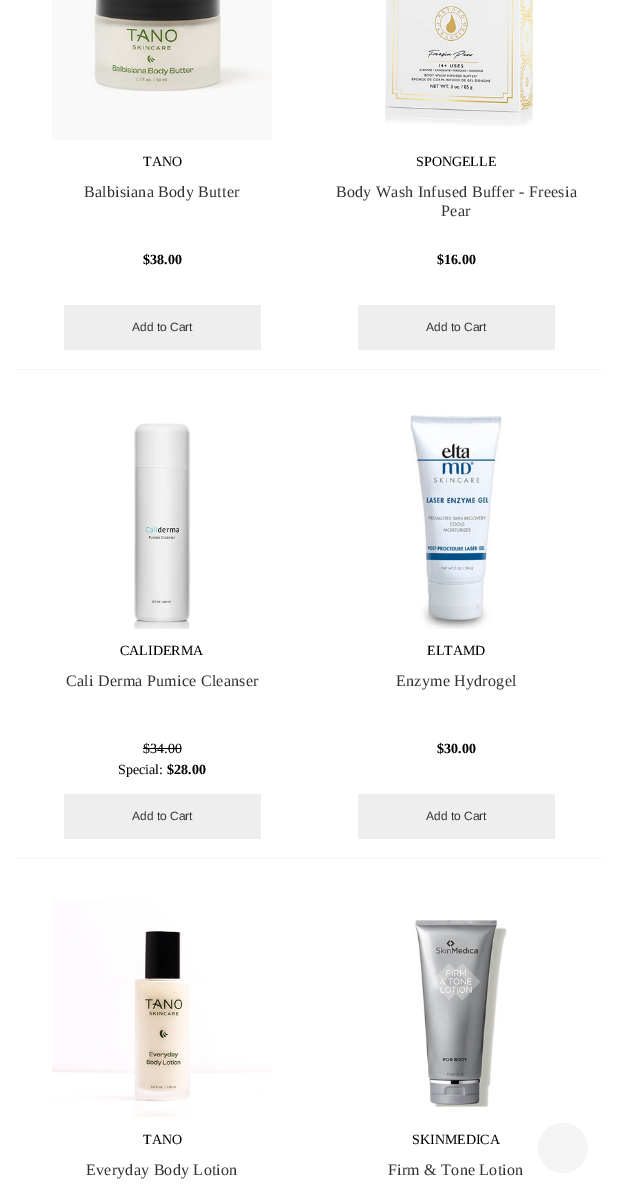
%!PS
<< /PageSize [618 1203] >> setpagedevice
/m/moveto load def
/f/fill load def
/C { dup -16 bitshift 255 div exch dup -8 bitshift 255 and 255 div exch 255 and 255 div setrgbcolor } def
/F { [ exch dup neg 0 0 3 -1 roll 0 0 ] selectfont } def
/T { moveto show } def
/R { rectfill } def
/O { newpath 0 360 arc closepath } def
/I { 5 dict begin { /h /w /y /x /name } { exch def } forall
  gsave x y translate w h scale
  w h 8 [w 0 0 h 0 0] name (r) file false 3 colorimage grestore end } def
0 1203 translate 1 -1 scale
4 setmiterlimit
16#FFFFFF C
0 0 618 1203 R
(1.rgb) 52 0 220 140 I
/LiberationSerif-Regular 14 F
16#000000 C
(TANO) 143 166 T
/LiberationSerif-Regular 16 F
16#333333 C
84 197 m .25 0 (Balbisiana Body Butter) ashow
/LiberationSerif-Bold 14 F
16#000000 C
($38.00) 143 264 T
16#EEEEEE C
64 305 197 45 R
/LiberationSans-Regular 12 F
16#333333 C
(Add to Cart) 132 331 T
(2.rgb) 385 0 148 127 I
/LiberationSerif-Regular 14 F
16#000000 C
(SPONGELLE) 416 166 T
/LiberationSerif-Regular 16 F
16#333333 C
336 197 m .25 0 (Body Wash Infused Buffer - Freesia) ashow
441 216 m .25 0 (Pear) ashow
/LiberationSerif-Bold 14 F
16#000000 C
($16.00) 437 264 T
16#EEEEEE C
358 305 197 45 R
/LiberationSans-Regular 12 F
16#333333 C
(Add to Cart) 426 331 T
16#F5F5F5 C
15 369 588 1 R
(3.rgb) 134 423 57 206 I
/LiberationSerif-Regular 14 F
16#000000 C
(CALIDERMA) 120 655 T
/LiberationSerif-Regular 16 F
16#333333 C
66 686 m .25 0 (Cali Derma Pumice Cleanser) ashow
/LiberationSerif-Regular 14 F
16#000000 C
($34.00) 143 753 T
143 748 38 1 R
(Special:) 118 774 T
/LiberationSerif-Bold 14 F
($28.00) 167 774 T
16#EEEEEE C
64 794 197 45 R
/LiberationSans-Regular 12 F
16#333333 C
(Add to Cart) 132 820 T
(4.rgb) 409 415 94 214 I
/LiberationSerif-Regular 14 F
16#000000 C
(ELTAMD) 427 655 T
/LiberationSerif-Regular 16 F
16#333333 C
396 686 m .25 0 (Enzyme Hydrogel) ashow
/LiberationSerif-Bold 14 F
16#000000 C
($30.00) 437 753 T
16#EEEEEE C
358 794 197 45 R
/LiberationSans-Regular 12 F
16#333333 C
(Add to Cart) 426 820 T
16#F5F5F5 C
15 858 588 1 R
(5.rgb) 52 899 220 219 I
/LiberationSerif-Regular 14 F
16#000000 C
(TANO) 143 1144 T
/LiberationSerif-Regular 16 F
16#333333 C
86 1175 m .25 0 (Everyday Body Lotion) ashow
(6.rgb) 414 920 93 187 I
/LiberationSerif-Regular 14 F
16#000000 C
(SKINMEDICA) 412 1144 T
/LiberationSerif-Regular 16 F
16#333333 C
388 1175 m .25 0 (Firm & Tone Lotion) ashow
16#F5F5F5 C
563 1148 25 O f
showpage
